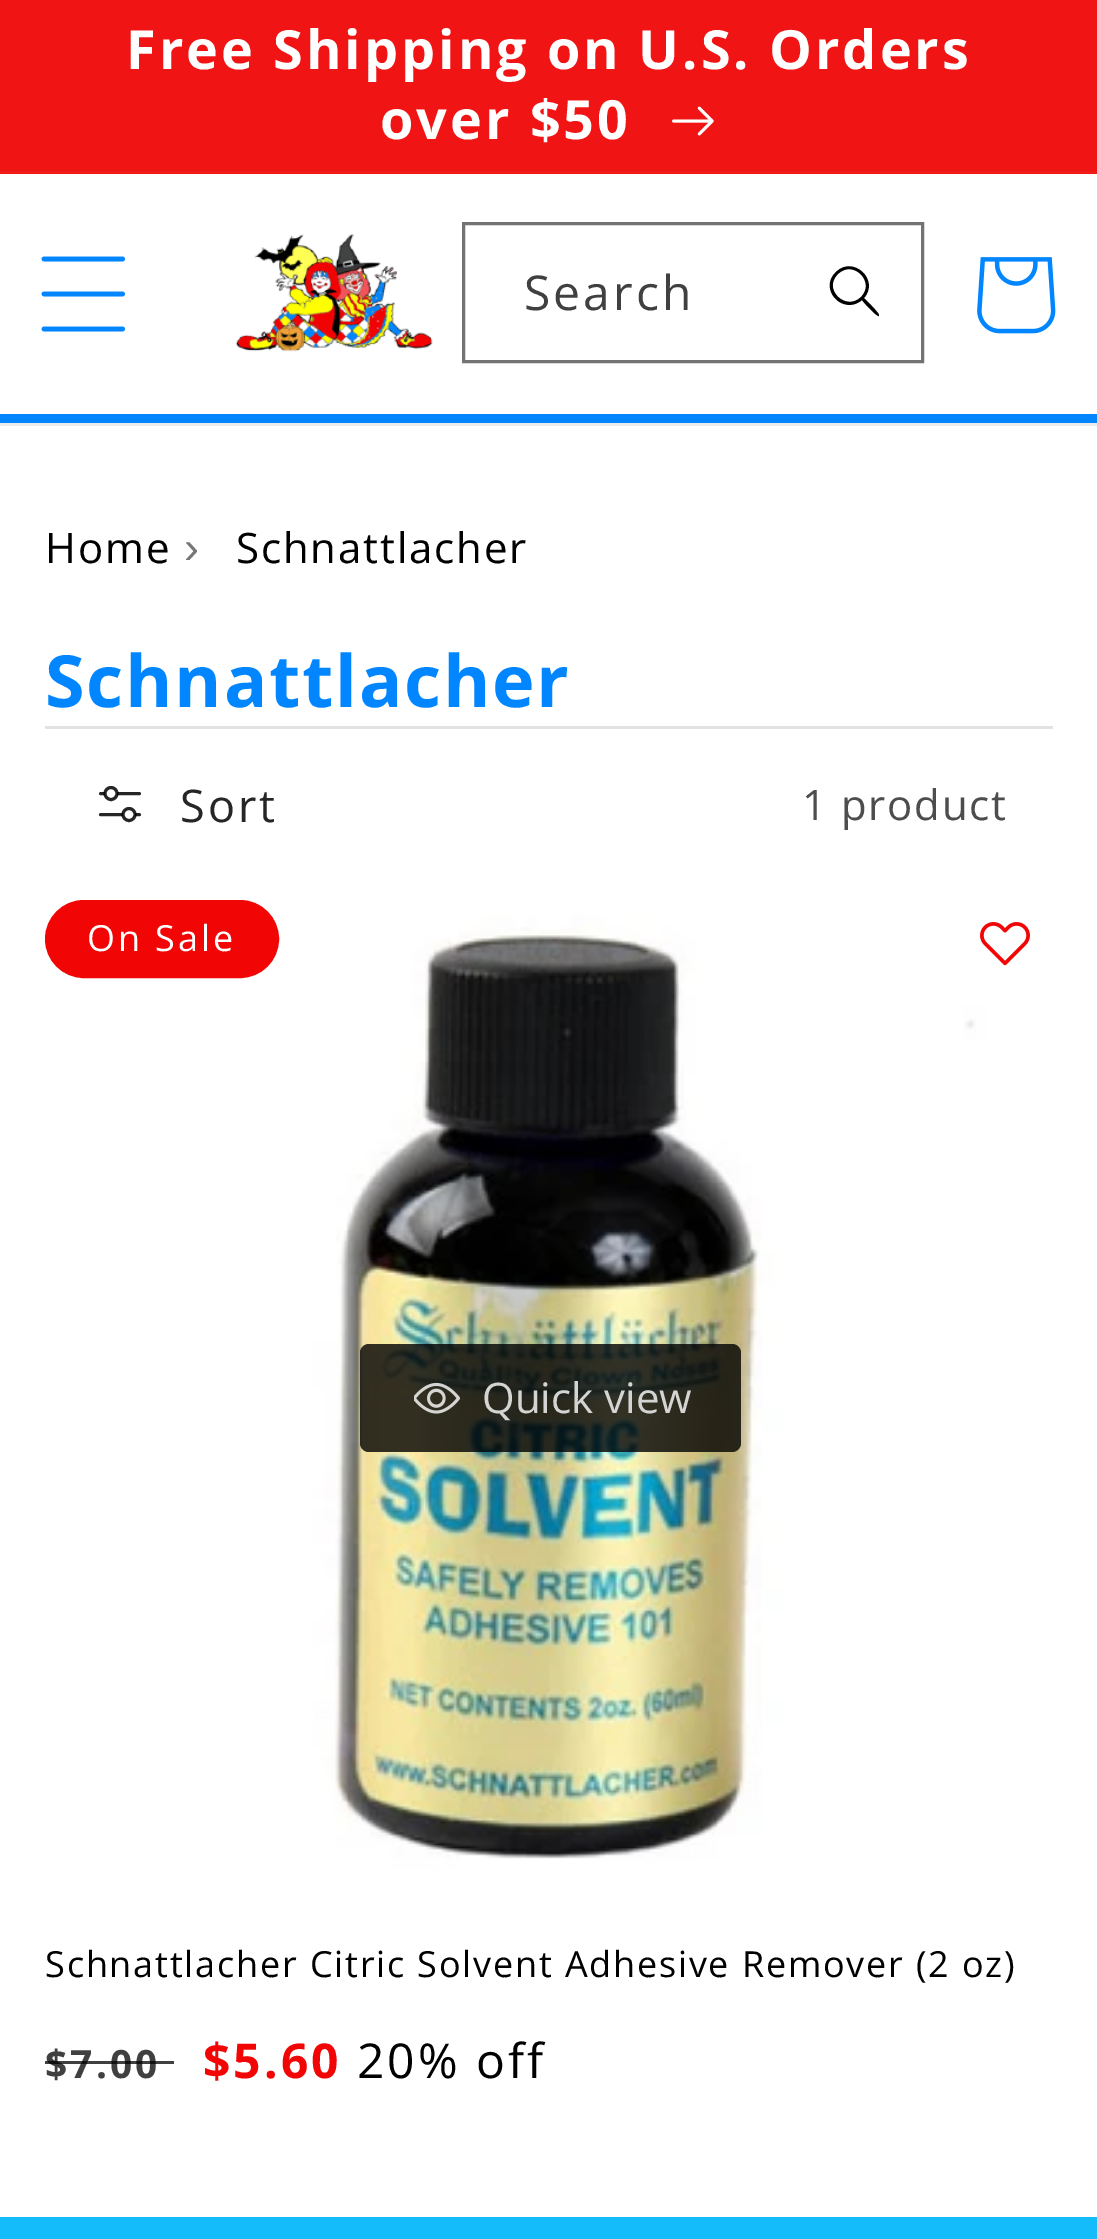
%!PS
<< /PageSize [1097 2239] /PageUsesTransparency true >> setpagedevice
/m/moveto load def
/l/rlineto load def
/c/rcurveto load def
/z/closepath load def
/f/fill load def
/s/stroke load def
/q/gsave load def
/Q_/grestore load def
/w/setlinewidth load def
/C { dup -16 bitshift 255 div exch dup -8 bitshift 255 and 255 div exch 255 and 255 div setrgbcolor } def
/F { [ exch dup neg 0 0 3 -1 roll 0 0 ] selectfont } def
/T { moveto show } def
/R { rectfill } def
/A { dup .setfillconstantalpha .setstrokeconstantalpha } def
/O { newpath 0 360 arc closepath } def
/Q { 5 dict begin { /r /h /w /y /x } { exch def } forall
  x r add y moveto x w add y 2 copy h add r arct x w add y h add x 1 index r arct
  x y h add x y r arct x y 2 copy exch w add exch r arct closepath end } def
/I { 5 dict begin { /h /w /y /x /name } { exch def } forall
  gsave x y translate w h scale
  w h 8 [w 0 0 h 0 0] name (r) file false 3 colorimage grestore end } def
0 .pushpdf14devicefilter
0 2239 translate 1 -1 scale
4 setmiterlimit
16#FFFFFF C
0 0 1097 2239 R
16#F21919 C
0 171 1097 3 R
16#F11414 C
0 0 1097 171 R
/OpenSans-Bold 54 F
16#FFFFFF C
126 69 m 3 0 (Free Shipping on U.S. Orders) ashow
380 139 m 3 0 (over $50) ashow
(1.rgb) 672 106 42 30 I
16#EBEBEB C
0 423 1097 3 R
16#0186FF C
0 414 1097 9 R
(2.rgb) 41 256 84 76 I
(3.rgb) 235 234 198 118 I
16#000000 C
861 297 m -15 15 -39 -8 -23 -23 c 15 -15 38 8 23 23 c z 862 300 m -19 16 -44 -11 -26 -28 c 17 -17 44 8 28 26 c 2 2 15 15 15 17 c 0 1 l -2 1 -15 -13 -17 -16 c z eofill
16#737373 C
3 w
463.5 223.5 459 138 rectstroke
/OpenSans-Regular 48 F
16#404040 C
524 310 m 3 0 (Search) ashow
(4.rgb) 977 257 79 77 I
/OpenSans-Regular 42 F
16#000000 C
45 563 m 1.8 0 (Home) ashow
/LiberationSans-Regular 45 F
16#767676 C
184 563 m 1.8 0 (›) ashow
/OpenSans-Regular 42 F
16#000000 C
236 563 m 1.8 0 (Schnattlacher) ashow
16#E2E2E2 C
45 726 1008 3 R
/OpenSans-Bold 72 F
16#0186FF C
45 707 m 1.8 0 (Schnattlacher) ashow
16#262626 C
1 setlinecap
139.5 793.5 m -39 0 l 139.5 814.5 m -39 0 l s
16#FFFFFF C
129 814.5 6 O f
0.85 A
16#000000 C
0 setlinecap
129 814.5 6 O s
1 A
16#FFFFFF C
111 793.5 6 O f
0.85 A
16#000000 C
111 793.5 6 O s
/OpenSans-Regular 45 F
1 A
16#262626 C
180 822 m 3 0 (Sort) ashow
/OpenSans-Regular 42 F
16#4D4D4D C
802 820 m 1.8 0 (1 product) ashow
(5.rgb) 45 894 1008 1008 I
16#F10505 C
46.5 901.5 231 75 37.5 Q q f Q_
s
/OpenSans-Regular 36 F
16#FFFFFF C
87 951 m 3 0 (On Sale) ashow
0.8 A
16#000000 C
360 1344 381 108 9 Q f
1 A
(6.rgb) 414 1382 46 32 I
/OpenSans-Regular 42 F
16#D4D4D2 C
(Quick view) 482 1413 T
(7.rgb) 980 922 50 44 I
/OpenSans-Regular 36 F
16#000000 C
45 1977 m 1.8 0 (Schnattlacher Citric Solvent Adhesive Remover \(2 oz\)) ashow
/OpenSans-Bold 39 F
16#404040 C
45 2078 m 3 0 ($7.00) ashow
0.75 A
16#000000 C
45 2061 129 3 R
/OpenSans-Bold 48 F
1 A
16#F10505 C
203 2078 m 3 0 ($5.60) ashow
/OpenSans-Regular 48 F
16#000000 C
357 2078 m 3 0 (20% off) ashow
16#14BCFC C
0 2217 1097 22 R
.poppdf14devicefilter showpage
